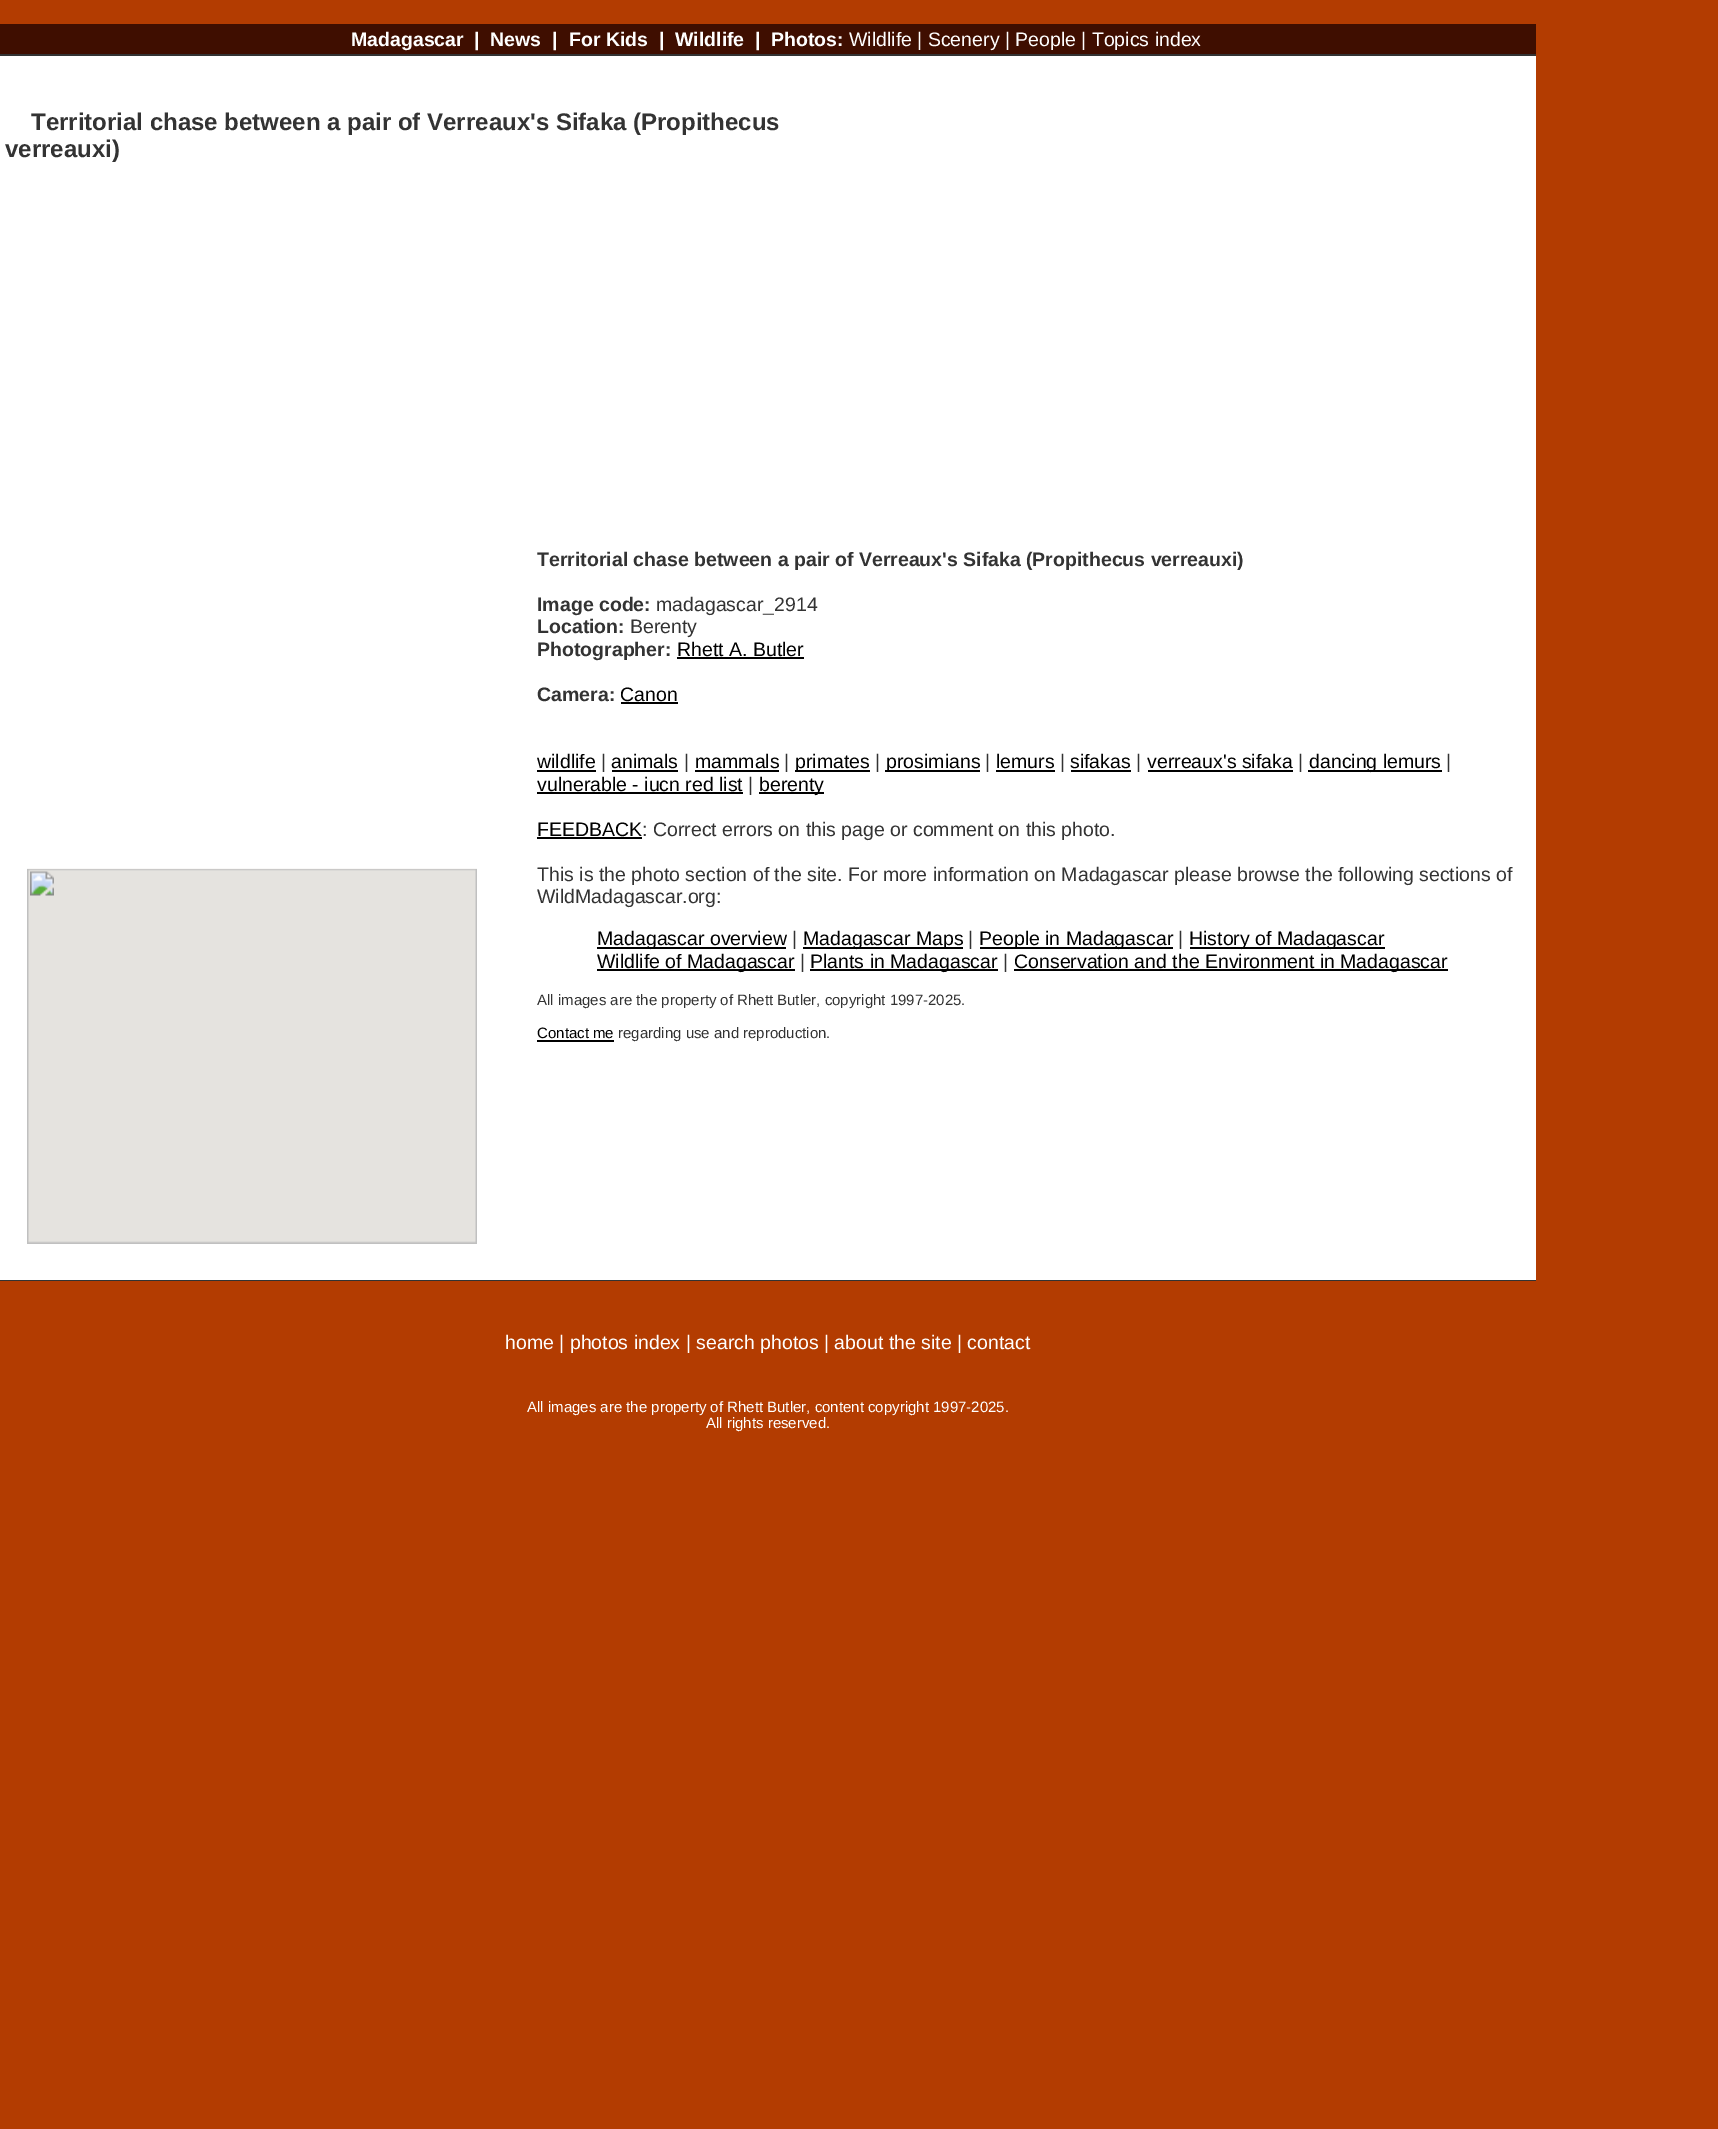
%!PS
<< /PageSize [1718 2129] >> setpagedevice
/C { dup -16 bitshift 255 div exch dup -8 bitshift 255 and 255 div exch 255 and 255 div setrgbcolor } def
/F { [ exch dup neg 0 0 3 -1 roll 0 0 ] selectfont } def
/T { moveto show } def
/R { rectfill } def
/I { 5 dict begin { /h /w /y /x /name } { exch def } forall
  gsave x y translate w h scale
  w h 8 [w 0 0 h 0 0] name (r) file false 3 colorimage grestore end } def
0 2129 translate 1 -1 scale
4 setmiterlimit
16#B33C01 C
0 0 1718 2129 R
16#3F0E00 C
0 24 1536 30 R
/LiberationSans-Bold 19.5 F
16#FFFFFF C
(Madagascar) 351 46 T
(|) 474 46 T
(News) 490 46 T
(|) 552 46 T
(For Kids) 569 46 T
(|) 659 46 T
(Wildlife) 675 46 T
(|) 755 46 T
(Photos:) 771 46 T
/LiberationSans-Regular 19.5 F
(Wildlife | Scenery | People | Topics index) 849 46 T
16#333333 C
0 54 1536 2 R
16#FFFFFF C
0 56 1536 1224 R
/LiberationSans-Bold 24 F
16#333333 C
(Territorial chase between a pair of Verreaux's Sifaka \(Propithecus) 31 130 T
(verreauxi\)) 5 157 T
(1.rgb) 27 868 450 376 I
/LiberationSans-Bold 19.5 F
(Territorial chase between a pair of Verreaux's Sifaka \(Propithecus verreauxi\)) 537 566 T
(Image code:) 537 611 T
/LiberationSans-Regular 19.5 F
(madagascar_2914) 656 611 T
/LiberationSans-Bold 19.5 F
(Location:) 537 633 T
/LiberationSans-Regular 19.5 F
(Berenty) 630 633 T
/LiberationSans-Bold 19.5 F
(Photographer:) 537 656 T
/LiberationSans-Regular 19.5 F
16#000000 C
(Rhett A. Butler) 677 656 T
677 657 127 2 R
/LiberationSans-Bold 19.5 F
16#333333 C
(Camera:) 537 701 T
/LiberationSans-Regular 19.5 F
16#000000 C
(Canon) 620 701 T
621 702 57 2 R
(wildlife) 537 768 T
537 770 59 2 R
16#333333 C
(|) 601 768 T
16#000000 C
(animals) 611 768 T
612 770 66 2 R
16#333333 C
(|) 684 768 T
16#000000 C
(mammals) 695 768 T
695 770 84 2 R
16#333333 C
(|) 784 768 T
16#000000 C
795 770 75 2 R
(primates) 795 768 T
16#333333 C
(|) 875 768 T
16#000000 C
885 770 95 2 R
(prosimians) 886 768 T
16#333333 C
(|) 985 768 T
16#000000 C
(lemurs) 996 768 T
996 770 59 2 R
16#333333 C
(|) 1060 768 T
16#000000 C
(sifakas) 1070 768 T
1071 770 60 2 R
16#333333 C
(|) 1136 768 T
16#000000 C
(verreaux's sifaka) 1147 768 T
1148 770 145 2 R
16#333333 C
(|) 1298 768 T
16#000000 C
1308 770 134 2 R
(dancing lemurs) 1309 768 T
16#333333 C
(|) 1446 768 T
16#000000 C
(vulnerable - iucn red list) 537 791 T
537 792 206 2 R
16#333333 C
(|) 748 791 T
16#000000 C
759 792 65 2 R
(berenty) 759 791 T
(FEEDBACK) 537 836 T
537 837 105 2 R
16#333333 C
(: Correct errors on this page or comment on this photo.) 642 836 T
(This is the photo section of the site. For more information on Madagascar please browse the following sections of) 537 881 T
(WildMadagascar.org:) 537 903 T
16#000000 C
597 947 189 2 R
(Madagascar overview) 597 945 T
16#333333 C
(|) 792 945 T
16#000000 C
803 947 160 2 R
(Madagascar Maps) 803 945 T
16#333333 C
(|) 968 945 T
16#000000 C
980 947 193 2 R
(People in Madagascar) 979 945 T
16#333333 C
(|) 1178 945 T
16#000000 C
1190 947 195 2 R
(History of Madagascar) 1189 945 T
597 969 198 2 R
(Wildlife of Madagascar) 597 968 T
16#333333 C
(|) 800 968 T
16#000000 C
810 969 188 2 R
(Plants in Madagascar) 810 968 T
16#333333 C
(|) 1003 968 T
16#000000 C
1014 969 434 2 R
(Conservation and the Environment in Madagascar) 1014 968 T
/LiberationSans-Regular 15 F
16#333333 C
(All images are the property of Rhett Butler, copyright 1997-2025.) 537 1005 T
16#000000 C
(Contact me) 537 1038 T
537 1040 77 2 R
16#333333 C
(regarding use and reproduction.) 618 1038 T
0 1280 1536 1 R
/LiberationSans-Regular 19.5 F
16#FFFFFF C
(home | photos index | search photos | about the site | contact) 505 1349 T
/LiberationSans-Regular 15 F
(All images are the property of Rhett Butler, content copyright 1997-2025.) 527 1412 T
(All rights reserved.) 706 1428 T
showpage
